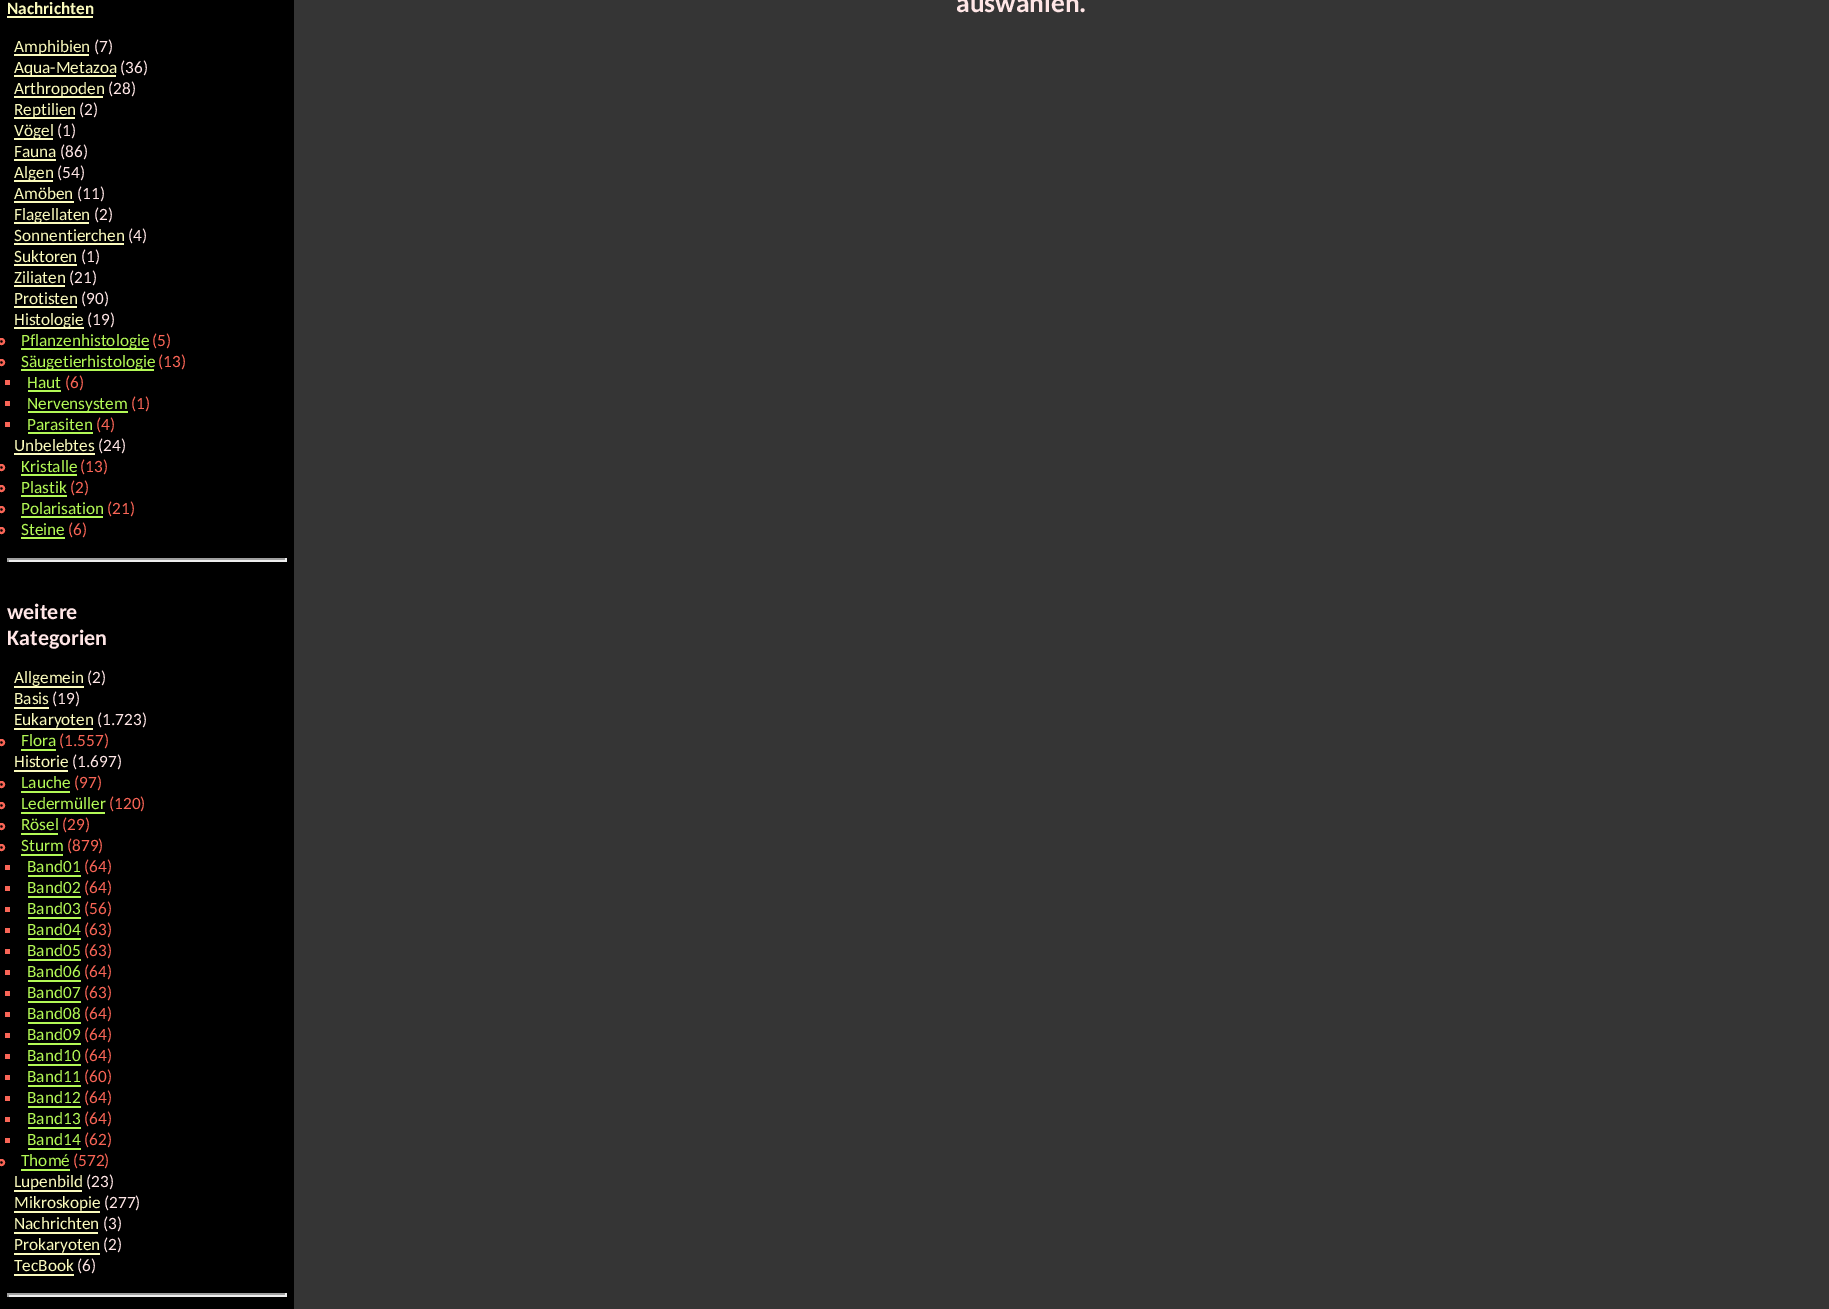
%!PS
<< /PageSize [1829 1309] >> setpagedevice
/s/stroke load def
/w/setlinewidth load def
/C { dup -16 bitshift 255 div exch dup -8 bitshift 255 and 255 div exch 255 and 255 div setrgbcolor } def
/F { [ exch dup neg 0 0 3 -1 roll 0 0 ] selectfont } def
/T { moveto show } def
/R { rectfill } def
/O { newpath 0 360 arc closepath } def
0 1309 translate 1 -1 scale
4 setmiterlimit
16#353535 C
0 0 1829 1309 R
16#000000 C
0 0 294 1309 R
/Carlito-Bold 17.25 F
16#FBFBBD C
(Nachrichten) 7 14 T
7 16 86 2 R
14 54 75 2 R
/Carlito-Regular 17.25 F
(Amphibien) 14 52 T
16#FFE6E6 C
(\(7\)) 94 52 T
16#FBFBBD C
14 75 102 2 R
(Aqua-Metazoa) 14 73 T
16#FFE6E6 C
(\(36\)) 120 73 T
16#FBFBBD C
14 96 89 2 R
(Arthropoden) 14 94 T
16#FFE6E6 C
(\(28\)) 108 94 T
16#FBFBBD C
14 117 61 2 R
(Reptilien) 14 115 T
16#FFE6E6 C
(\(2\)) 79 115 T
16#FBFBBD C
14 138 39 2 R
(Vögel) 14 136 T
16#FFE6E6 C
(\(1\)) 57 136 T
16#FBFBBD C
(Fauna) 14 157 T
14 159 42 2 R
16#FFE6E6 C
(\(86\)) 60 157 T
16#FBFBBD C
14 180 39 2 R
(Algen) 14 178 T
16#FFE6E6 C
(\(54\)) 57 178 T
16#FBFBBD C
(Amöben) 14 199 T
14 201 60 2 R
16#FFE6E6 C
(\(11\)) 77 199 T
16#FBFBBD C
14 222 75 2 R
(Flagellaten) 14 220 T
16#FFE6E6 C
(\(2\)) 94 220 T
16#FBFBBD C
(Sonnentierchen) 14 241 T
14 243 110 2 R
16#FFE6E6 C
(\(4\)) 128 241 T
16#FBFBBD C
(Suktoren) 14 262 T
14 264 63 2 R
16#FFE6E6 C
(\(1\)) 81 262 T
16#FBFBBD C
(Ziliaten) 14 283 T
14 285 51 2 R
16#FFE6E6 C
(\(21\)) 69 283 T
16#FBFBBD C
(Protisten) 14 304 T
14 306 63 2 R
16#FFE6E6 C
(\(90\)) 81 304 T
16#FBFBBD C
14 327 70 2 R
(Histologie) 14 325 T
16#FFE6E6 C
(\(19\)) 87 325 T
16#F96556 C
2 w
1.5 341.5 2.5 O s
16#B3F956 C
21 348 128 2 R
(Pflanzenhistologie) 21 346 T
16#F96556 C
(\(5\)) 152 346 T
1.5 362.5 2.5 O s
16#B3F956 C
21 369 133 2 R
(Säugetierhistologie) 21 367 T
16#F96556 C
(\(13\)) 158 367 T
5 380 5 5 R
16#B3F956 C
(Haut) 27 388 T
28 390 33 2 R
16#F96556 C
(\(6\)) 65 388 T
5 401 5 5 R
16#B3F956 C
28 411 100 2 R
(Nervensystem) 27 409 T
16#F96556 C
(\(1\)) 131 409 T
5 422 5 5 R
16#B3F956 C
(Parasiten) 27 430 T
28 432 65 2 R
16#F96556 C
(\(4\)) 96 430 T
16#FBFBBD C
(Unbelebtes) 14 451 T
14 453 81 2 R
16#FFE6E6 C
(\(24\)) 98 451 T
16#F96556 C
1.5 467.5 2.5 O s
16#B3F956 C
(Kristalle) 21 472 T
21 474 56 2 R
16#F96556 C
(\(13\)) 80 472 T
1.5 488.5 2.5 O s
16#B3F956 C
(Plastik) 21 493 T
21 495 46 2 R
16#F96556 C
(\(2\)) 70 493 T
1.5 509.5 2.5 O s
16#B3F956 C
(Polarisation) 21 514 T
21 516 82 2 R
16#F96556 C
(\(21\)) 107 514 T
1.5 530.5 2.5 O s
16#B3F956 C
(Steine) 21 535 T
21 537 44 2 R
16#F96556 C
(\(6\)) 68 535 T
16#9F9F9F C
7 558 280 2 R
16#EEEEEE C
285 558 2 4 R
7 560 280 2 R
16#9F9F9F C
7 558 2 4 R
/Carlito-Bold 22 F
16#FFE6E6 C
(weitere) 7 619 T
(Kategorien) 7 645 T
/Carlito-Regular 17.25 F
16#FBFBBD C
(Allgemein) 14 683 T
14 686 70 2 R
16#FFE6E6 C
(\(2\)) 87 683 T
16#FBFBBD C
(Basis) 14 704 T
14 707 35 2 R
16#FFE6E6 C
(\(19\)) 52 704 T
16#FBFBBD C
(Eukaryoten) 14 725 T
14 728 79 2 R
16#FFE6E6 C
(\(1.723\)) 97 725 T
16#F96556 C
1.5 742.5 2.5 O s
16#B3F956 C
(Flora) 21 746 T
21 749 35 2 R
16#F96556 C
(\(1.557\)) 59 746 T
16#FBFBBD C
(Historie) 14 767 T
14 770 54 2 R
16#FFE6E6 C
(\(1.697\)) 72 767 T
16#F96556 C
1.5 784.5 2.5 O s
16#B3F956 C
(Lauche) 21 788 T
21 791 49 2 R
16#F96556 C
(\(97\)) 74 788 T
1.5 805.5 2.5 O s
16#B3F956 C
(Ledermüller) 21 809 T
21 812 84 2 R
16#F96556 C
(\(120\)) 109 809 T
1.5 826.5 2.5 O s
16#B3F956 C
(Rösel) 21 830 T
21 833 37 2 R
16#F96556 C
(\(29\)) 62 830 T
1.5 847.5 2.5 O s
16#B3F956 C
(Sturm) 21 851 T
21 854 42 2 R
16#F96556 C
(\(879\)) 67 851 T
5 865 5 5 R
16#B3F956 C
(Band01) 27 872 T
28 875 53 2 R
16#F96556 C
(\(64\)) 84 872 T
5 886 5 5 R
16#B3F956 C
(Band02) 27 893 T
28 896 53 2 R
16#F96556 C
(\(64\)) 84 893 T
5 907 5 5 R
16#B3F956 C
(Band03) 27 914 T
28 917 53 2 R
16#F96556 C
(\(56\)) 84 914 T
5 928 5 5 R
16#B3F956 C
(Band04) 27 935 T
28 938 53 2 R
16#F96556 C
(\(63\)) 84 935 T
5 949 5 5 R
16#B3F956 C
(Band05) 27 956 T
28 959 53 2 R
16#F96556 C
(\(63\)) 84 956 T
5 970 5 5 R
16#B3F956 C
(Band06) 27 977 T
28 980 53 2 R
16#F96556 C
(\(64\)) 84 977 T
5 991 5 5 R
16#B3F956 C
(Band07) 27 998 T
28 1001 53 2 R
16#F96556 C
(\(63\)) 84 998 T
5 1012 5 5 R
16#B3F956 C
(Band08) 27 1019 T
28 1022 53 2 R
16#F96556 C
(\(64\)) 84 1019 T
5 1033 5 5 R
16#B3F956 C
(Band09) 27 1040 T
28 1043 53 2 R
16#F96556 C
(\(64\)) 84 1040 T
5 1054 5 5 R
16#B3F956 C
(Band10) 27 1061 T
28 1064 53 2 R
16#F96556 C
(\(64\)) 84 1061 T
5 1075 5 5 R
16#B3F956 C
(Band11) 27 1082 T
28 1085 53 2 R
16#F96556 C
(\(60\)) 84 1082 T
5 1096 5 5 R
16#B3F956 C
(Band12) 27 1103 T
28 1106 53 2 R
16#F96556 C
(\(64\)) 84 1103 T
5 1117 5 5 R
16#B3F956 C
(Band13) 27 1124 T
28 1127 53 2 R
16#F96556 C
(\(64\)) 84 1124 T
5 1138 5 5 R
16#B3F956 C
(Band14) 27 1145 T
28 1148 53 2 R
16#F96556 C
(\(62\)) 84 1145 T
1.5 1162.5 2.5 O s
16#B3F956 C
(Thomé) 21 1166 T
21 1169 49 2 R
16#F96556 C
(\(572\)) 73 1166 T
16#FBFBBD C
(Lupenbild) 14 1187 T
14 1190 68 2 R
16#FFE6E6 C
(\(23\)) 86 1187 T
16#FBFBBD C
(Mikroskopie) 14 1208 T
14 1211 86 2 R
16#FFE6E6 C
(\(277\)) 104 1208 T
16#FBFBBD C
(Nachrichten) 14 1229 T
14 1232 84 2 R
16#FFE6E6 C
(\(3\)) 103 1229 T
16#FBFBBD C
(Prokaryoten) 14 1250 T
14 1253 86 2 R
16#FFE6E6 C
(\(2\)) 103 1250 T
16#FBFBBD C
(TecBook) 14 1271 T
14 1274 60 2 R
16#FFE6E6 C
(\(6\)) 77 1271 T
16#9F9F9F C
7 1293 280 2 R
16#EEEEEE C
285 1293 2 4 R
7 1295 280 2 R
16#9F9F9F C
7 1293 2 4 R
/Carlito-Bold 27.5 F
16#FFE6E6 C
(auswählen.) 956 12 T
showpage
